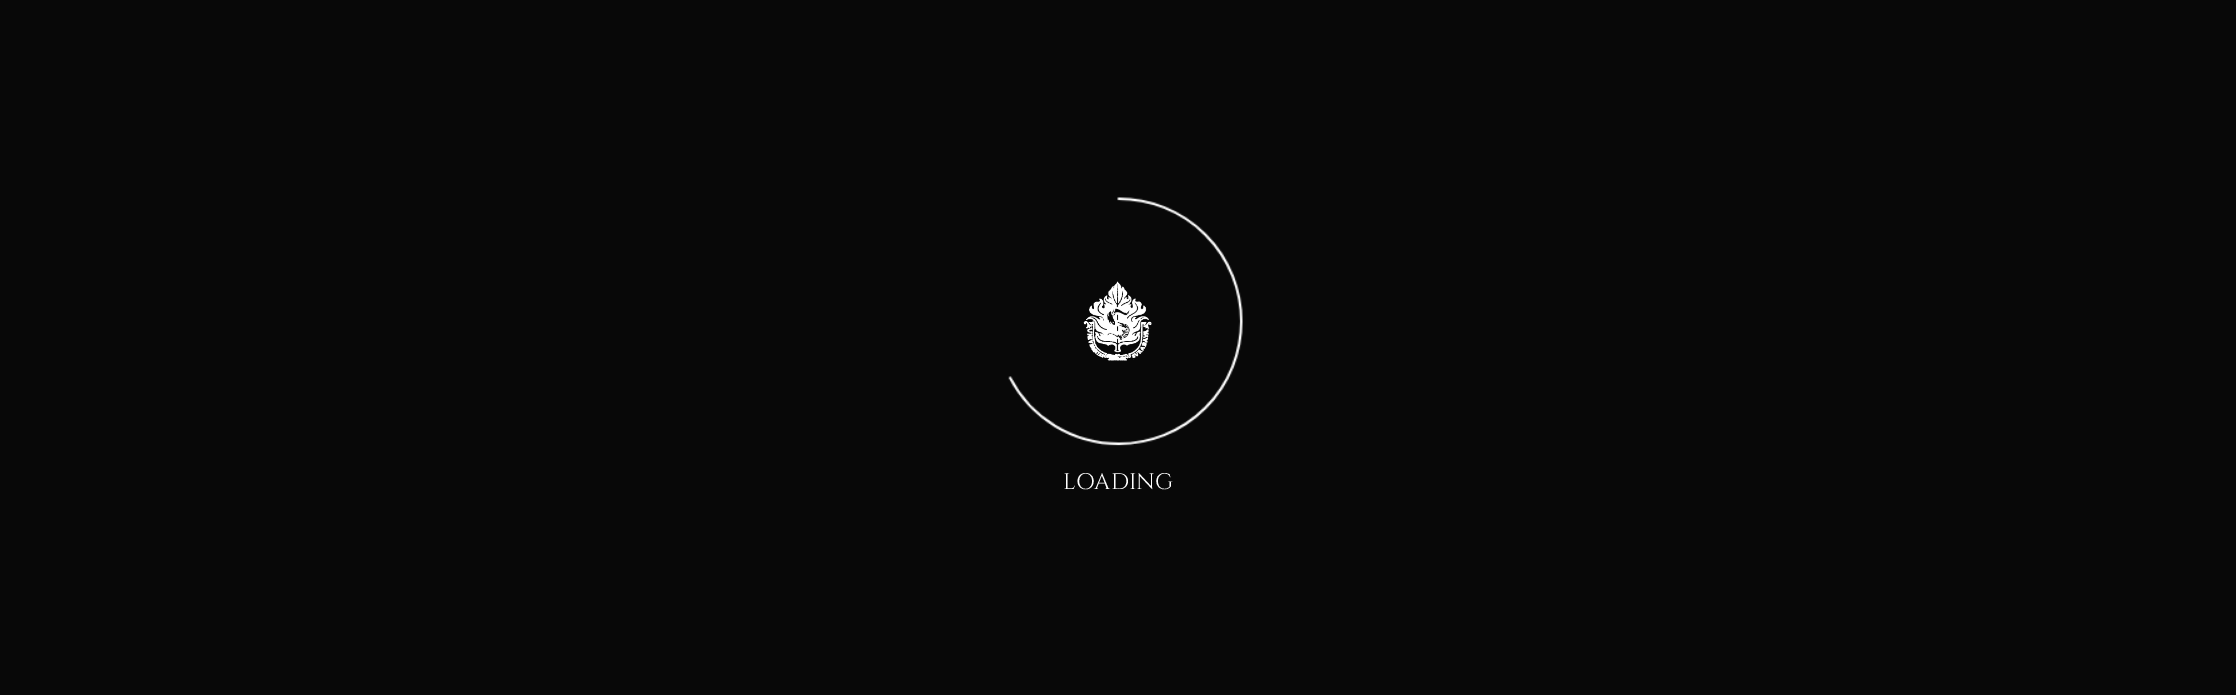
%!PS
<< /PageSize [2236 695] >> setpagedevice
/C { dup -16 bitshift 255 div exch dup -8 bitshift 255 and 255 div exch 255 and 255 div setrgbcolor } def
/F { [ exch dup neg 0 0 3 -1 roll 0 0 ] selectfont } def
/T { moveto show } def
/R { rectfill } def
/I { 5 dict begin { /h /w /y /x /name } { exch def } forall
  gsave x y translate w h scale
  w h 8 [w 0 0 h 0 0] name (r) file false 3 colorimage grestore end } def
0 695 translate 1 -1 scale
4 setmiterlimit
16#080808 C
0 0 2236 695 R
(1.rgb) 1008 197 235 249 I
(2.rgb) 1083 281 69 80 I
/Cinzel-Regular 22.5 F
16#FFFFFF C
(LOADING) 1063 489 T
showpage
